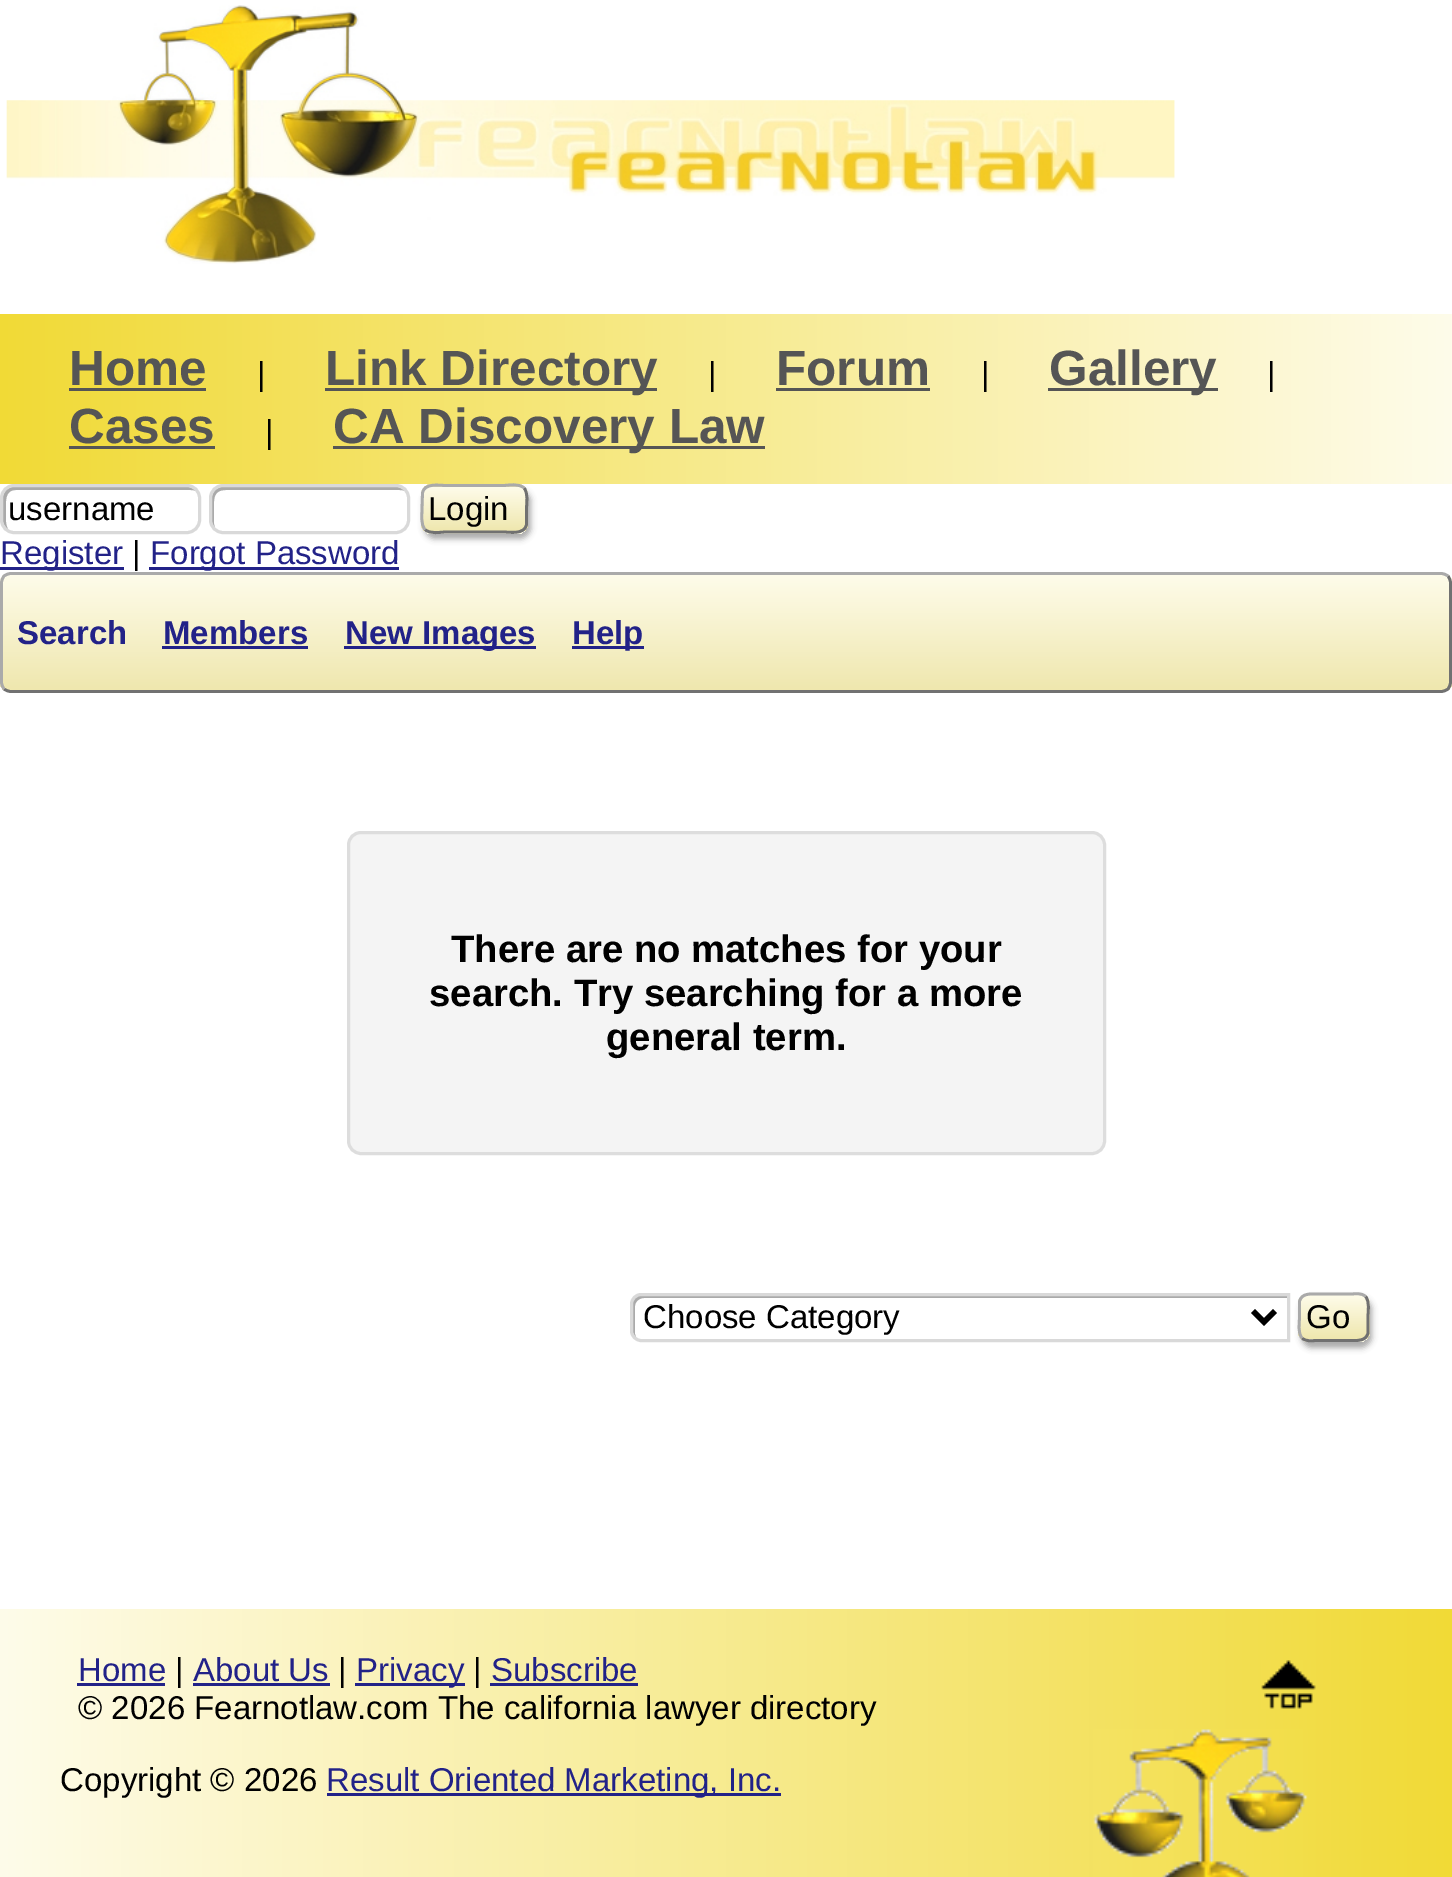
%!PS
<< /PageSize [1452 1877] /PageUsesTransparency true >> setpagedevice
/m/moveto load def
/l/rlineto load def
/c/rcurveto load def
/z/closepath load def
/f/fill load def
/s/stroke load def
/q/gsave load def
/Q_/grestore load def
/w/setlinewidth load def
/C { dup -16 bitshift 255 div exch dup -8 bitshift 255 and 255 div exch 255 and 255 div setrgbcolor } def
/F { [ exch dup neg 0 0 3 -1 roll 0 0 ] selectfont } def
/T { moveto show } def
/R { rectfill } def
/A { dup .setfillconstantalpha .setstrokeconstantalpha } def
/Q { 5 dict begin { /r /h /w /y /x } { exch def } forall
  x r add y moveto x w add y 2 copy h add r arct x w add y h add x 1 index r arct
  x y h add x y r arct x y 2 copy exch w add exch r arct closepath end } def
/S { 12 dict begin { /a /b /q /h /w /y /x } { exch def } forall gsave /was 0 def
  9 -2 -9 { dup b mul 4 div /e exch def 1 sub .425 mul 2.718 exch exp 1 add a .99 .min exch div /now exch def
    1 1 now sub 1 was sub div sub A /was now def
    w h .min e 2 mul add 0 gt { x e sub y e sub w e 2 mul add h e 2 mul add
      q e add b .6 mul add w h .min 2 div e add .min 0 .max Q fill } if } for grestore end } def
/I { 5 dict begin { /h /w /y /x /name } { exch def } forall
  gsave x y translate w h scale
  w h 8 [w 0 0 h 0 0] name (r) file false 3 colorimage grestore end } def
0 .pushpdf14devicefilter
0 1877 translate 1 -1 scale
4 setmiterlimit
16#FFFFFF C
0 0 1452 1877 R
(1.rgb) 6 5 1169 259 I
q 0 314 m 1452 0 l 0 170 l -1452 0 l z clip newpath
<< /ShadingType 2 /ColorSpace /DeviceRGB /Coords [0 399 1452 399] /Extend [true true] /Function << /FunctionType 2 /Domain [0 1] /C0 [.945 .855 .212] /C1 [.996 .988 .918] /N 1 >> >> shfill Q_
/LiberationSans-Bold 49.5 F
16#555555 C
(Home) 69 385 T
69 388 137 3 R
/LiberationSans-Regular 33 F
16#000000 C
(|) 257 385 T
16#555555 C
325 388 332 3 R
/LiberationSans-Bold 49.5 F
(Link Directory) 325 385 T
/LiberationSans-Regular 33 F
16#000000 C
(|) 708 385 T
/LiberationSans-Bold 49.5 F
16#555555 C
(Forum) 776 385 T
776 388 154 3 R
/LiberationSans-Regular 33 F
16#000000 C
(|) 981 385 T
16#555555 C
1048 388 170 3 R
/LiberationSans-Bold 49.5 F
(Gallery) 1049 385 T
/LiberationSans-Regular 33 F
16#000000 C
(|) 1267 385 T
/LiberationSans-Bold 49.5 F
16#555555 C
(Cases) 69 443 T
69 446 146 3 R
/LiberationSans-Regular 33 F
16#000000 C
(|) 265 443 T
16#555555 C
333 446 432 3 R
/LiberationSans-Bold 49.5 F
(CA Discovery Law) 333 443 T
16#AAAAAA C
16 490 m 174 0 l 2 0 4 0 6 1 c -2 -2 -5 -4 -9 -4 c -173 0 l -6 0 -11 5 -11 11 c 0 22 l 0 4 2 7 5 9 c -3 -5 -2 -12 -2 -18 c 0 -8 -2 -21 10 -21 c z f
16#D9D9D9 C
3 w
1.5 485.5 198 47 12.5 Q s
/LiberationSans-Regular 33 F
16#000000 C
(username) 8 520 T
16#AAAAAA C
226 490 m 173 0 l 2 0 4 0 6 1 c -2 -2 -5 -4 -9 -4 c -173 0 l -6 0 -11 5 -11 11 c 0 22 l 0 3 1 6 3 8 c -2 -5 -1 -12 -1 -17 c 0 -10 -2 -21 12 -21 c z f
16#D9D9D9 C
210.5 485.5 198 47 12.5 Q s
16#AAAAAA C
424 490 107 49 11 3 1 S
q
421 484 107 50 11 Q clip newpath
q 421 484 m 107 0 l 0 3 l -107 0 l z clip newpath
<< /ShadingType 2 /ColorSpace /DeviceRGB /Coords [474 443 474 487] /Extend [true true] /Function << /FunctionType 2 /Domain [0 1] /C0 [.996 .988 .918] /C1 [.937 .906 .682] /N 1 >> >> shfill Q_
q 421 487 m 107 0 l 0 44 l -107 0 l z clip newpath
<< /ShadingType 2 /ColorSpace /DeviceRGB /Coords [474 487 474 531] /Extend [true true] /Function << /FunctionType 2 /Domain [0 1] /C0 [.996 .988 .918] /C1 [.937 .906 .682] /N 1 >> >> shfill Q_
q 421 531 m 107 0 l 0 3 l -107 0 l z clip newpath
<< /ShadingType 2 /ColorSpace /DeviceRGB /Coords [474 531 474 575] /Extend [true true] /Function << /FunctionType 2 /Domain [0 1] /C0 [.996 .988 .918] /C1 [.937 .906 .682] /N 1 >> >> shfill Q_
Q_
16#717171 C
2.8 w
524 488 m 4.5 5 2.5 15 2.5 21 c 0 15.5 l -2 10.5 -16.5 7.5 -23.5 7.5 c -57 0 l -5 0 -16 2.5 -21 -2.5 c s
16#AAAAAA C
425 529.5 m -4.5 -5 -3 -15 -3 -20.5 c .5 -16 l 2 -10.5 16.5 -7.5 23.5 -7.5 c 57 0 l 5 0 16 -2.5 21 2.5 c s
16#000000 C
(Login) 428 520 T
16#222288 C
0 567 124 3 R
(Register) 0 564 T
16#000000 C
(|) 132 564 T
16#222288 C
149 567 250 3 R
(Forgot Password) 150 564 T
q
0 572 1452 121 11 Q clip newpath
q 0 575 m 1452 0 l 0 115 l -1452 0 l z clip newpath
<< /ShadingType 2 /ColorSpace /DeviceRGB /Coords [726 575 726 690] /Extend [true true] /Function << /FunctionType 2 /Domain [0 1] /C0 [.996 .988 .918] /C1 [.937 .906 .682] /N 1 >> >> shfill Q_
Q_
16#717171 C
1448 576 m 1.5 2 2.5 4.5 2.5 7 c 0 99 l 0 2.5 -1 5 -2.5 7 c -2 1.5 -4.5 2.5 -7 2.5 c -1430 0 l -2.5 0 -5 -1 -7 -2.5 c s
16#AAAAAA C
4 689 m -1.5 -2 -2.5 -4.5 -2.5 -7 c 0 -99 l 0 -2.5 1 -5 2.5 -7 c 2 -1.5 4.5 -2.5 7 -2.5 c 1430 0 l 2.5 0 5 1 7 2.5 c s
/LiberationSans-Bold 33 F
16#222288 C
(Search) 17 644 T
(Members) 163 644 T
162 646 146 3 R
344 646 192 3 R
(New Images) 345 644 T
572 646 72 3 R
(Help) 572 644 T
16#F4F4F4 C
348.5 832.5 756 321 12.5 Q q f Q_
16#DDDDDD C
3 w
s
/LiberationSans-Bold 38.25 F
16#000000 C
(There are no matches for your) 451 962 T
(search. Try searching for a more) 429 1006 T
(general term.) 606 1050 T
16#AAAAAA C
644 1298 m 643 0 l 0 -3 l -646 0 l -4 0 -8 4 -8 8 c 0 28 l 0 2 1 5 3 6 c -1 -3 l 0 -28 l 0 -4 4 -8 9 -8 c z f
16#D9D9D9 C
641 1294.5 m 647.5 0 l 0 46 l -647.5 0 l -5 0 -9.5 -4.5 -9.5 -9.5 c 0 -27 l 0 -5 4.5 -9.5 9.5 -9.5 c z s
16#000000 C
5.5 w
1253 1311 m 11 11 l 11 -11 l s
/LiberationSans-Regular 33 F
(Choose Category) 643 1328 T
16#AAAAAA C
1301 1298 71 50 11 3 1 S
q
1298 1293 72 49 11 Q clip newpath
q 1298 1295 m 72 0 l 0 44 l -72 0 l z clip newpath
<< /ShadingType 2 /ColorSpace /DeviceRGB /Coords [1334 1295 1334 1339] /Extend [true true] /Function << /FunctionType 2 /Domain [0 1] /C0 [.996 .988 .918] /C1 [.937 .906 .682] /N 1 >> >> shfill Q_
q 1298 1339 m 72 0 l 0 3 l -72 0 l z clip newpath
<< /ShadingType 2 /ColorSpace /DeviceRGB /Coords [1334 1339 1334 1383] /Extend [true true] /Function << /FunctionType 2 /Domain [0 1] /C0 [.996 .988 .918] /C1 [.937 .906 .682] /N 1 >> >> shfill Q_
Q_
16#717171 C
2.8 w
1365.5 1296.5 m 4.5 5 2.5 15 2.5 20.5 c 0 16 l -2 8.5 -11 7.5 -18 7.5 c -33 0 l -5 0 -11 1.5 -15 -2.5 c s
16#AAAAAA C
1302 1338 m -4.5 -5 -2.5 -15 -2.5 -21 c 0 -15.5 l 2 -8.5 11 -7.5 17.5 -7.5 c 33 0 l 5.5 0 11.5 -1.5 15.5 2.5 c s
16#000000 C
(Go) 1306 1328 T
q 0 1609 m 1452 0 l 0 268 l -1452 0 l z clip newpath
<< /ShadingType 2 /ColorSpace /DeviceRGB /Coords [0 1782 1452 1782] /Extend [true true] /Function << /FunctionType 2 /Domain [0 1] /C0 [.996 .988 .918] /C1 [.945 .855 .212] /N 1 >> >> shfill Q_
16#222288 C
(Home) 78 1681 T
77 1683 88 3 R
16#000000 C
(|) 175 1681 T
16#222288 C
(About Us) 193 1681 T
193 1683 137 3 R
16#000000 C
(|) 338 1681 T
16#222288 C
355 1683 110 3 R
(Privacy) 356 1681 T
16#000000 C
(|) 473 1681 T
16#222288 C
(Subscribe) 491 1681 T
490 1683 148 3 R
16#000000 C
(© 2026 Fearnotlaw.com The california lawyer directory) 78 1719 T
(Copyright © 2026) 60 1791 T
16#222288 C
327 1793 454 3 R
(Result Oriented Marketing, Inc.) 326 1791 T
(2.rgb) 1261 1660 55 49 I
(3.rgb) 1093 1729 215 148 I
.poppdf14devicefilter showpage
